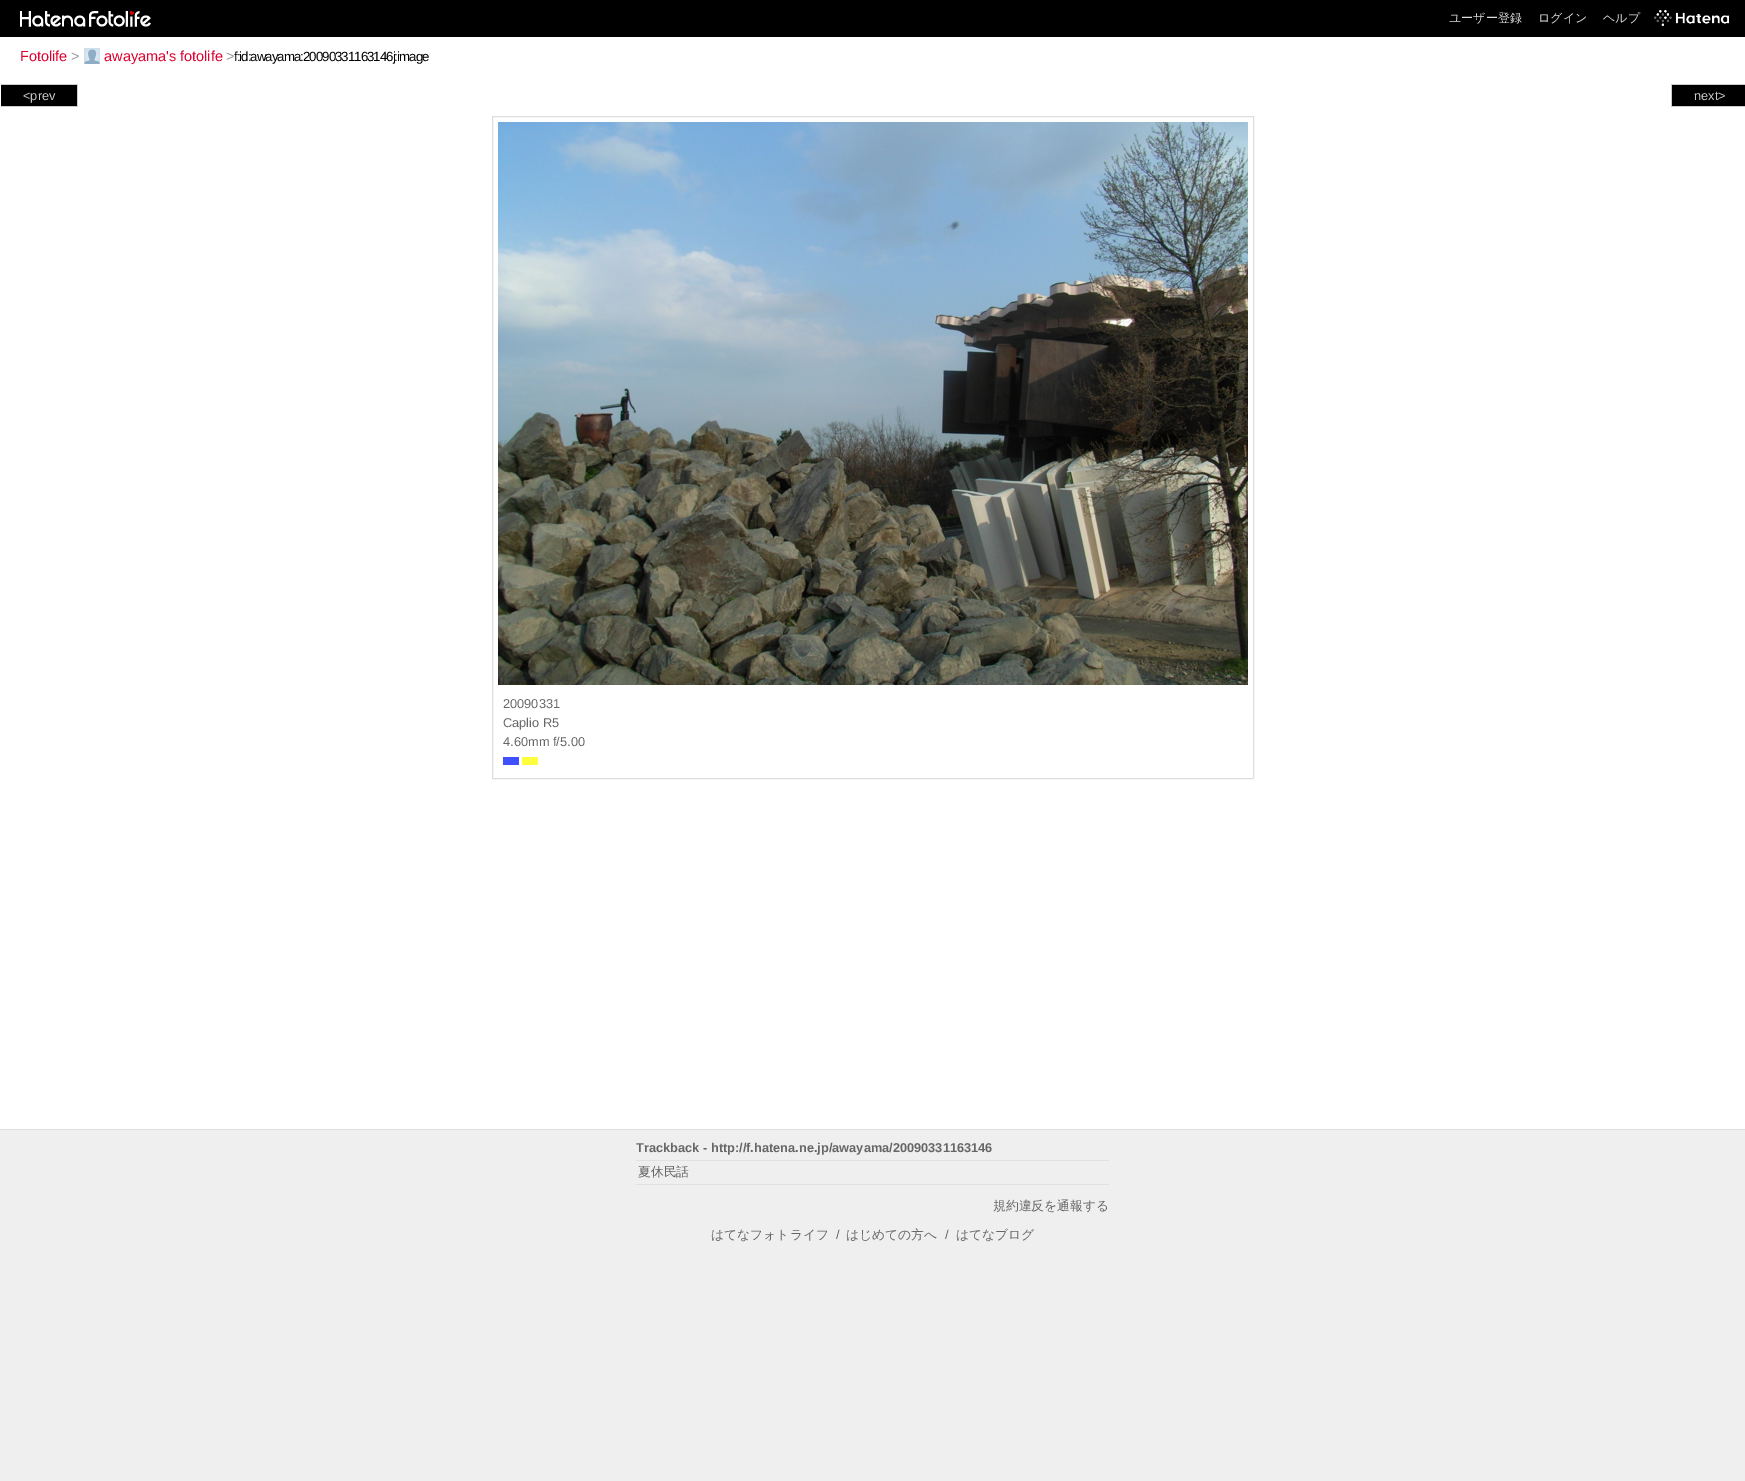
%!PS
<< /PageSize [1745 1481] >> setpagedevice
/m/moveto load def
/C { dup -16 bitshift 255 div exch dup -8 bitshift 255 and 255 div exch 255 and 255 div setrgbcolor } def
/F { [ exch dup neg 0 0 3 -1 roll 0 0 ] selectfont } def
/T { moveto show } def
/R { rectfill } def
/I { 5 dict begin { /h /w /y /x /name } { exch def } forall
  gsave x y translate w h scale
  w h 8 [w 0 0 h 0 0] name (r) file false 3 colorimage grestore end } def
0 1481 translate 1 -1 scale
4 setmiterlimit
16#EFEFEF C
0 0 1745 1481 R
16#000000 C
0 0 1745 37 R
(1.rgb) 20 11 66 16 I
(2.rgb) 89 11 62 16 I
/WenQuanYiZenHei-Medium 12 F
16#DDDDDD C
(ユーザー登録) 1449 22 T
(ログイン) 1538 22 T
(ヘルプ) 1603 22 T
(3.rgb) 1654 10 75 16 I
16#FFFFFF C
0 37 1745 1092 R
/LiberationSans-Regular 14.5 F
16#DE002F C
(Fotolife) 20 61 T
16#999999 C
(>) 71 61 T
(4.rgb) 84 48 16 16 I
16#DE002F C
(awayama's fotolife) 104 61 T
16#999999 C
(>) 226 61 T
/LiberationSans-Regular 13.3 F
16#000000 C
234 61 m -1 0 (f:id:awayama:20090331163146j:image) ashow
16#DEDEDE C
0 1129 1745 1 R
16#000000 C
1 85 76 21 R
16#CCCCCC C
1 84 77 1 R
77 84 1 23 R
1 106 77 1 R
/LiberationSans-Regular 12.8 F
(<prev) 23 100 T
16#000000 C
1672 85 73 21 R
16#CCCCCC C
1671 84 74 1 R
1671 106 74 1 R
1671 84 1 23 R
(next>) 1694 100 T
16#DEDEDE C
492.5 116.5 761 662 rectstroke
(5.rgb) 498 122 750 563 I
16#666666 C
(20090331) 503 708 T
(Caplio R5) 503 727 T
(4.60mm f/5.00) 503 746 T
16#4050FF C
503 757 16 8 R
16#FFFF40 C
522 757 16 8 R
/LiberationSans-Bold 12.8 F
16#666666 C
(Trackback - http://f.hatena.ne.jp/awayama/20090331163146) 636 1152 T
16#E1E1E1 C
636 1160 473 1 R
636 1184 473 1 R
/WenQuanYiZenHei-Medium 12.8 F
16#666666 C
(夏休民話) 638 1176 T
(規約違反を通報する) 993 1210 T
(はてなフォトライフ) 711 1239 T
/LiberationSans-Regular 12.8 F
(/) 836 1239 T
/WenQuanYiZenHei-Medium 12.8 F
(はじめての方へ) 846 1239 T
/LiberationSans-Regular 12.8 F
(/) 945 1239 T
/WenQuanYiZenHei-Medium 12.8 F
(はてなブログ) 956 1239 T
showpage
